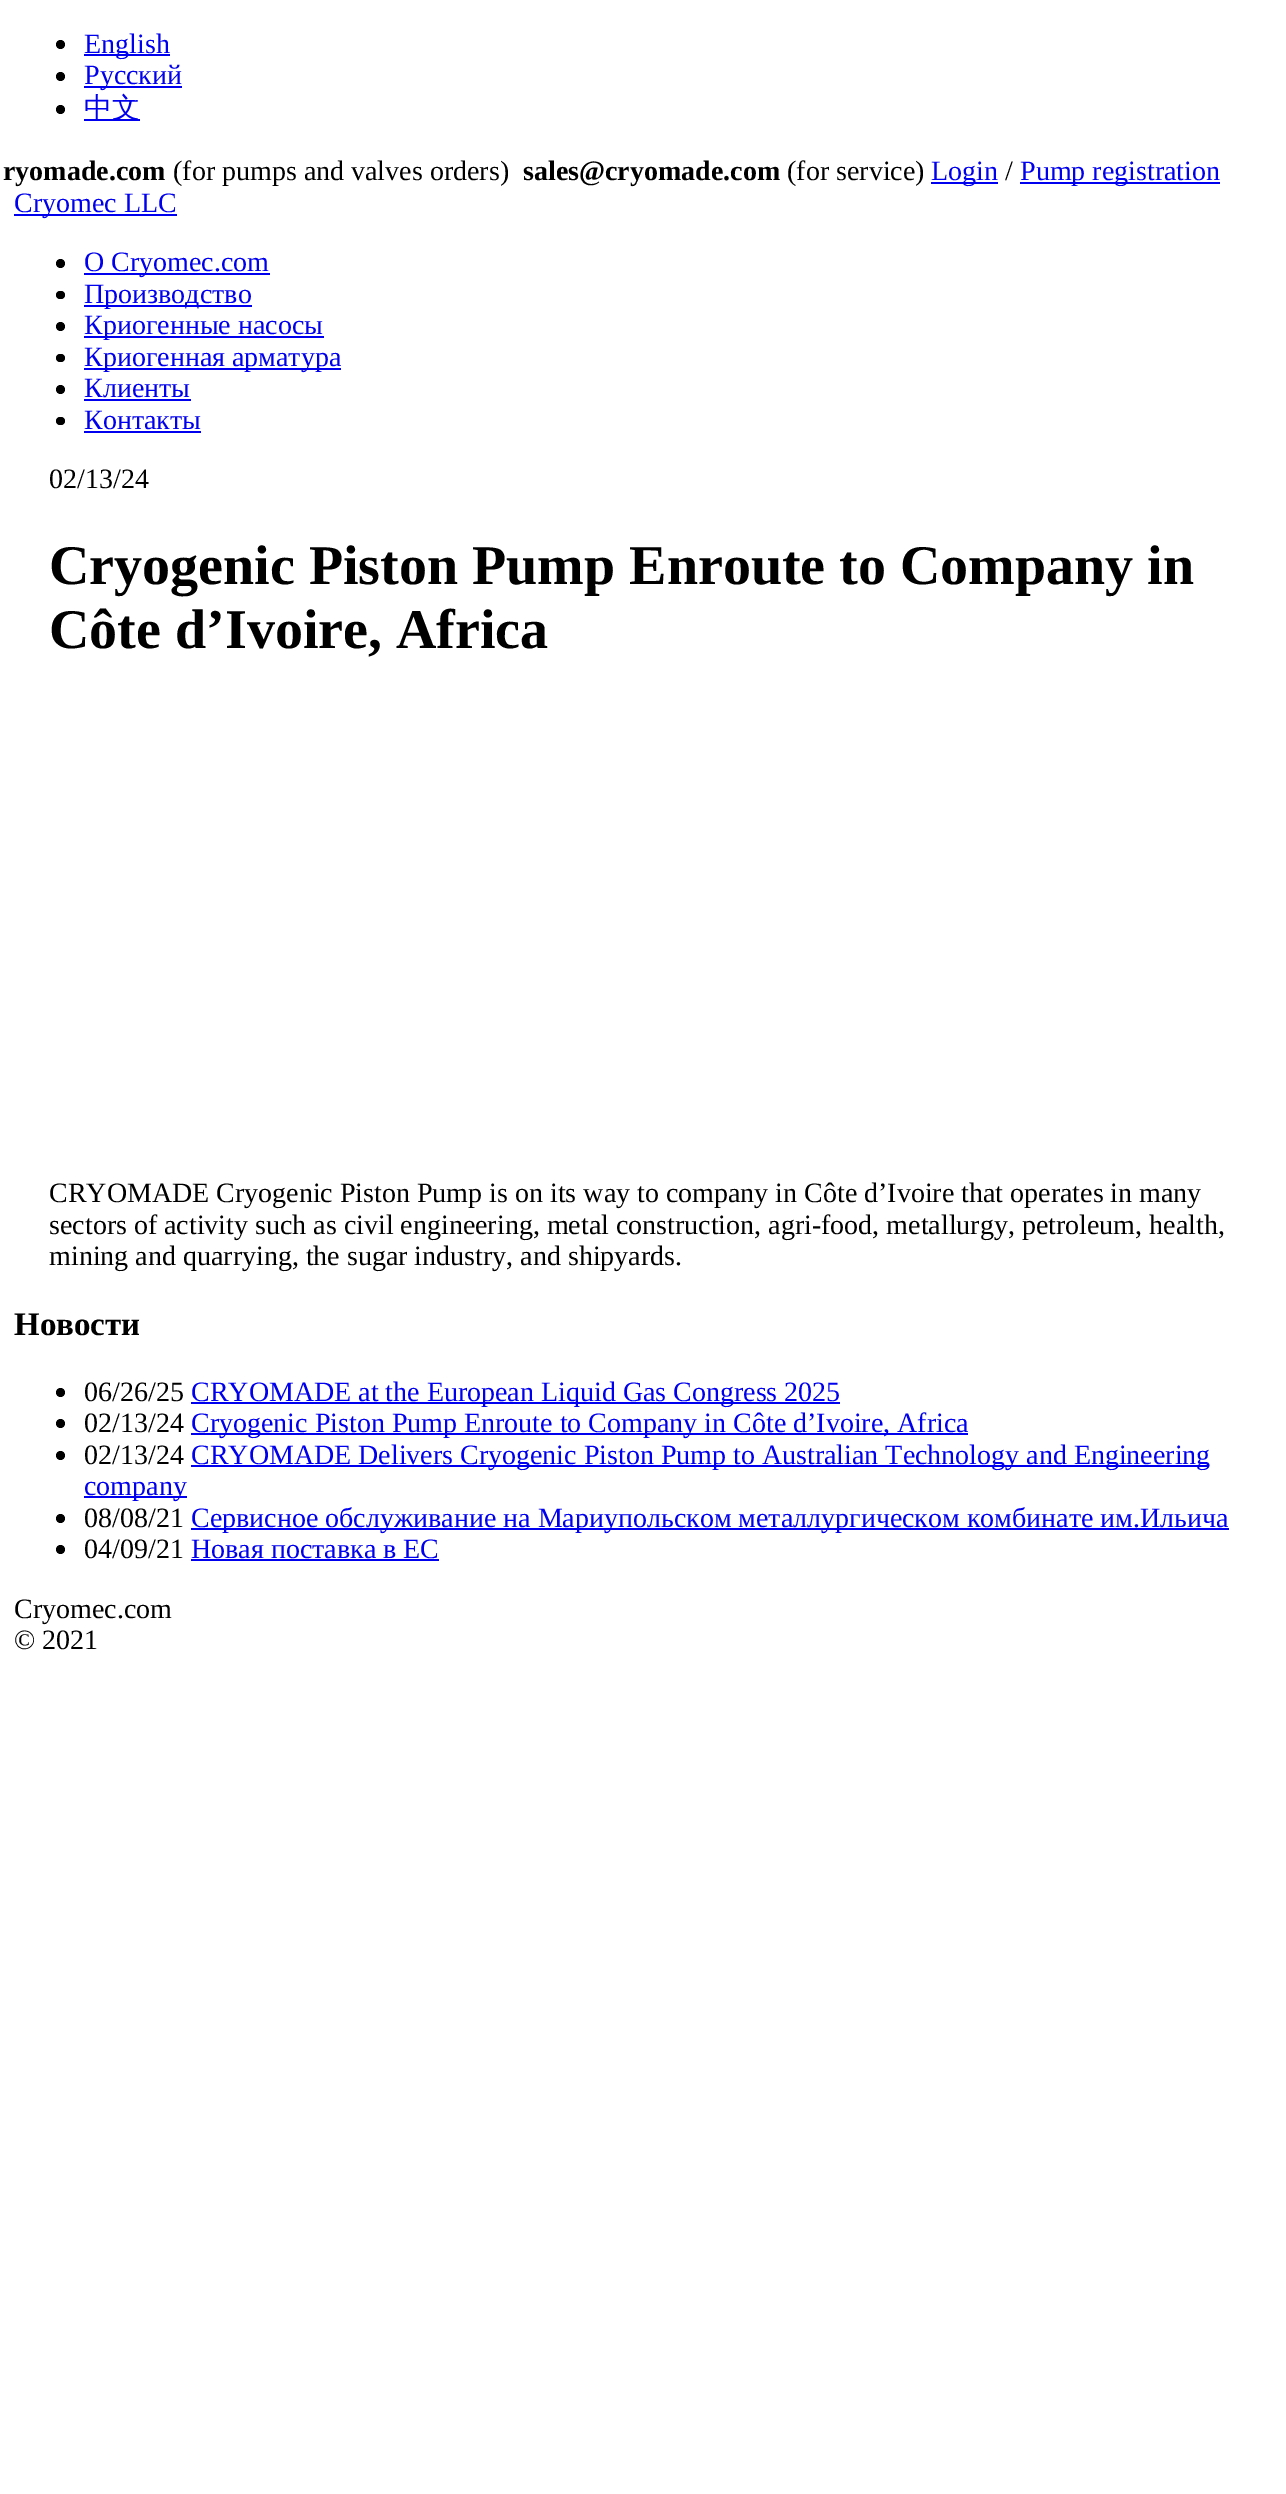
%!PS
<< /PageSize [1286 2494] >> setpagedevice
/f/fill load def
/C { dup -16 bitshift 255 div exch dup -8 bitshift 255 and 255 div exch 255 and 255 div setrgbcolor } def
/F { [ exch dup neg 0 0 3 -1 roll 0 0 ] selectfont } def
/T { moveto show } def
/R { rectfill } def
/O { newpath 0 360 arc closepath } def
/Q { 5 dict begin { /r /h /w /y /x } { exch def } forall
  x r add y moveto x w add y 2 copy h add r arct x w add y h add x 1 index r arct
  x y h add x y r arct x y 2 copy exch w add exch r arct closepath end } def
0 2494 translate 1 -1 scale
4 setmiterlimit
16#FFFFFF C
0 0 1286 2494 R
16#000000 C
60.5 44.5 4.5 O f
16#0000EE C
84 54 86 2 R
/LiberationSerif-Regular 28 F
(English) 84 53 T
16#000000 C
60.5 76.5 4.5 O f
16#0000EE C
84 86 98 2 R
(Русский) 84 84 T
16#000000 C
60.5 109.5 4.5 O f
16#0000EE C
84 119 56 2 R
/WenQuanYiZenHei-Medium 28 F
(中文) 84 117 T
/LiberationSerif-Bold 28 F
16#000000 C
(ryomade.com) 3 180 T
/LiberationSerif-Regular 28 F
(\(for pumps and valves orders\)) 173 180 T
/LiberationSerif-Bold 28 F
(sales@cryomade.com) 523 180 T
/LiberationSerif-Regular 28 F
(\(for service\)) 787 180 T
16#0000EE C
931 182 67 2 R
(Login) 931 180 T
16#000000 C
(/) 1005 180 T
16#0000EE C
1020 182 200 2 R
(Pump registration) 1020 180 T
14 214 163 2 R
(Cryomec LLC) 14 212 T
16#000000 C
60.5 263.5 4.5 O f
16#0000EE C
84 273 186 2 R
(О Cryomec.com) 84 271 T
16#000000 C
56 291 9 8 4 Q f
16#0000EE C
84 305 168 2 R
(Производство) 84 303 T
16#000000 C
60.5 326.5 4.5 O f
16#0000EE C
84 336 240 2 R
(Криогенные насосы) 84 334 T
16#000000 C
56 354 9 8 4 Q f
16#0000EE C
84 368 257 2 R
(Криогенная арматура) 84 366 T
16#000000 C
60.5 389.5 4.5 O f
16#0000EE C
(Клиенты) 84 397 T
84 399 107 2 R
16#000000 C
56 417 9 8 4 Q f
16#0000EE C
(Контакты) 84 429 T
84 431 117 2 R
16#000000 C
(02/13/24) 49 488 T
/LiberationSerif-Bold 56 F
(Cryogenic Piston Pump Enroute to Company in) 49 584 T
(Côte d’Ivoire, Africa) 49 648 T
/LiberationSerif-Regular 28 F
(CRYOMADE Cryogenic Piston Pump is on its way to company in Côte d’Ivoire that operates in many) 49 1202 T
(sectors of activity such as civil engineering, metal construction, agri-food, metallurgy, petroleum, health,) 49 1234 T
(mining and quarrying, the sugar industry, and shipyards.) 49 1265 T
/LiberationSerif-Bold 33 F
(Новости) 14 1335 T
60.5 1392.5 4.5 O f
/LiberationSerif-Regular 28 F
(06/26/25) 84 1401 T
16#0000EE C
191 1402 649 2 R
(CRYOMADE at the European Liquid Gas Congress 2025) 191 1401 T
16#000000 C
60.5 1423.5 4.5 O f
(02/13/24) 84 1432 T
16#0000EE C
191 1433 777 2 R
(Cryogenic Piston Pump Enroute to Company in Côte d’Ivoire, Africa) 191 1432 T
16#000000 C
60.5 1455.5 4.5 O f
(02/13/24) 84 1464 T
16#0000EE C
191 1465 1018 2 R
(CRYOMADE Delivers Cryogenic Piston Pump to Australian Technology and Engineering) 191 1464 T
84 1496 103 2 R
(company) 84 1495 T
16#000000 C
60.5 1518.5 4.5 O f
(08/08/21) 84 1527 T
16#0000EE C
191 1528 1038 2 R
(Сервисное обслуживание на Мариупольском металлургическом комбинате им.Ильича) 191 1527 T
16#000000 C
60.5 1549.5 4.5 O f
(04/09/21) 84 1558 T
16#0000EE C
(Новая поставка в ЕС) 191 1558 T
191 1559 248 2 R
16#000000 C
(Cryomec.com) 14 1618 T
(© 2021) 14 1649 T
showpage
